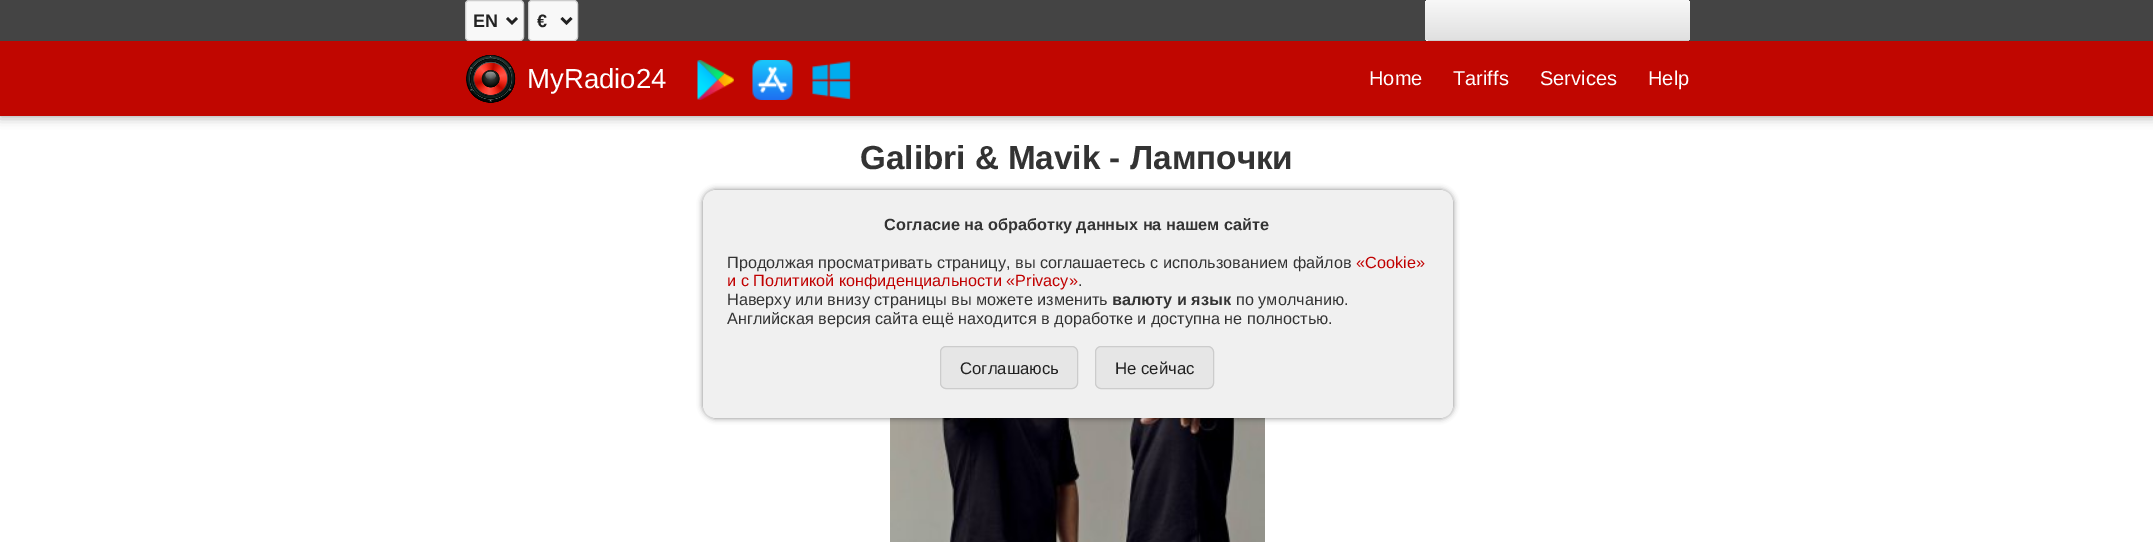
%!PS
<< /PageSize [2153 542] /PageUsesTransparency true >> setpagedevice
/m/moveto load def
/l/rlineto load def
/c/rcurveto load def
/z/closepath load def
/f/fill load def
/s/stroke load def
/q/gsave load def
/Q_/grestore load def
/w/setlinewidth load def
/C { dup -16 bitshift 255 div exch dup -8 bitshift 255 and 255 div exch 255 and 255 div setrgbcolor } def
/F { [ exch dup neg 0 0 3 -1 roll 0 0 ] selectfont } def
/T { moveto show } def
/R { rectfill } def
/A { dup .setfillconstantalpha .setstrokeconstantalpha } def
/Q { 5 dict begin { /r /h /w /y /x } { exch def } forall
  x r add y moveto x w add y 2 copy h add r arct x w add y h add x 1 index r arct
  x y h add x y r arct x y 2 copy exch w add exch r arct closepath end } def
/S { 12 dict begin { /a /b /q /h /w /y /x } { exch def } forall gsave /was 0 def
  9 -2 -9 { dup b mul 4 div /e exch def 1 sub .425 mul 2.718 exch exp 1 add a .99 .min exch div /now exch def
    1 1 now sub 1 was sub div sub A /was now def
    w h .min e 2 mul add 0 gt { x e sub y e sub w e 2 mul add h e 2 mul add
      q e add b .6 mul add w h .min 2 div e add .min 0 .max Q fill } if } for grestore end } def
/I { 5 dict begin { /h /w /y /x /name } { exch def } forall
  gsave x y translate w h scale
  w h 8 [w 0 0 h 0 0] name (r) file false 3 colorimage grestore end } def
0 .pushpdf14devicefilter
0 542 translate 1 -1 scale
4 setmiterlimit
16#FFFFFF C
0 0 2153 542 R
16#000000 C
0 41 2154 75 0 6 .4 S
16#444444 C
0 0 2153 41 R
16#F8F8F8 C
465.5 .5 58 40 3.5 Q q f Q_
16#CCCCCC C
s
16#222222 C
2.5 w
507 18 m 5 5 l 5 -5 l s
/LiberationSans-Bold 18 F
(EN) 473 27 T
16#F8F8F8 C
528.5 .5 49 40 3.5 Q q f Q_
16#CCCCCC C
1 w
s
16#222222 C
2.5 w
561.5 18 m 5 5 l 5 -5 l s
(€) 537 27 T
q
1425 0 265 41 4 Q clip newpath
q 1429 0 m 257 0 l 2 0 4 2 4 4 c 0 36 l -265 0 l 0 -36 l 0 -2 2 -4 4 -4 c z clip newpath
<< /ShadingType 2 /ColorSpace /DeviceRGB /Coords [1558 0 1558 40] /Extend [true true] /Function << /FunctionType 2 /Domain [0 1] /C0 [.973 .973 .973] /C1 [.878 .878 .878] /N 1 >> >> shfill Q_
q 1425 40 m 3 0 l 0 1 l -3 0 l z clip newpath
<< /ShadingType 2 /ColorSpace /DeviceRGB /Coords [1558 40 1558 80] /Extend [true true] /Function << /FunctionType 2 /Domain [0 1] /C0 [.973 .973 .973] /C1 [.878 .878 .878] /N 1 >> >> shfill Q_
Q_
16#CCCCCC C
1428 40 261 1 R
16#C00600 C
0 41 2153 75 R
(1.rgb) 466 55 50 48 I
/LiberationSans-Regular 27.5 F
16#FFFFFF C
(MyRadio24) 527 88 T
(2.rgb) 697 60 37 40 I
(3.rgb) 752 60 41 40 I
(4.rgb) 812 61 39 39 I
/LiberationSans-Regular 20 F
(Home) 1369 85 T
(Tariffs) 1453 85 T
(Services) 1540 85 T
(Help) 1648 85 T
/LiberationSans-Bold 33.25 F
16#333333 C
(Galibri & Mavik - Лампочки) 860 169 T
(5.rgb) 890 418 375 124 I
16#000000 C
703 190 750 228 13 3 .5 S
16#F0F0F0 C
703 190 750 228 13 Q f
/LiberationSans-Bold 16.25 F
16#333333 C
(Согласие на обработку данных на нашем сайте) 884 230 T
/LiberationSans-Regular 16.25 F
(Продолжая просматривать страницу, вы соглашаетесь с использованием файлов) 727 268 T
16#C00000 C
(«Cookie») 1356 268 T
(и с Политикой конфиденциальности «Privacy») 727 286 T
16#333333 C
(.) 1078 286 T
(Наверху или внизу страницы вы можете изменить) 727 305 T
/LiberationSans-Bold 16.25 F
(валюту и язык) 1112 305 T
/LiberationSans-Regular 16.25 F
(по умолчанию.) 1236 305 T
(Английская версия сайта ещё находится в доработке и доступна не полностью.) 727 324 T
16#E6E6E6 C
940.5 346.5 137 42 5.5 Q q f Q_
16#CCCCCC C
1 w
s
/LiberationSans-Regular 16.75 F
16#222222 C
(Соглашаюсь) 960 374 T
16#E6E6E6 C
1095.5 346.5 118 42 5.5 Q q f Q_
16#CCCCCC C
s
16#222222 C
(Не сейчас) 1115 374 T
.poppdf14devicefilter showpage
